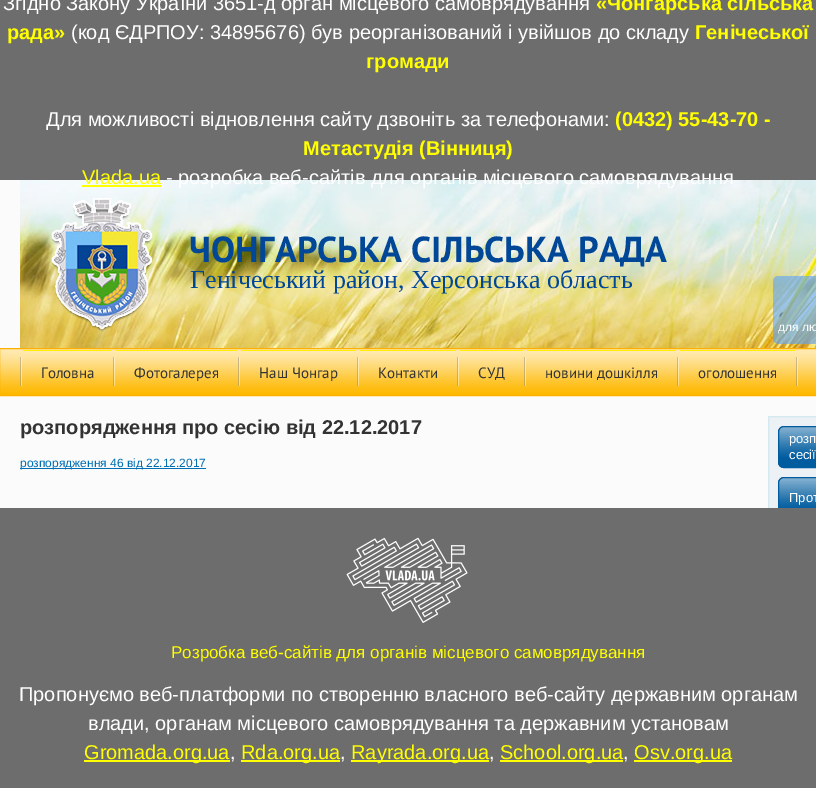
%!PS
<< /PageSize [816 788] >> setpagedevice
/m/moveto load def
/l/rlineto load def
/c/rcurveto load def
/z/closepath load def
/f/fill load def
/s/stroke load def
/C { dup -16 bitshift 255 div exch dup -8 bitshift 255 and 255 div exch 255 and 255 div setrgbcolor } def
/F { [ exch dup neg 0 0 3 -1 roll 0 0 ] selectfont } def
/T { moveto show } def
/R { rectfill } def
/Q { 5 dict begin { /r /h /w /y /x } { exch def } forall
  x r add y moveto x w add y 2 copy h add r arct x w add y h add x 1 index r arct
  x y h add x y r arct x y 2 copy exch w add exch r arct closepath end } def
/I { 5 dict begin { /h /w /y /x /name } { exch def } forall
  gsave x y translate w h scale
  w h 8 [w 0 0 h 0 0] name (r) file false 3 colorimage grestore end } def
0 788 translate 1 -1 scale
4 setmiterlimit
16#FBFBFB C
0 0 816 788 R
16#6D6D6D C
0 0 816 180 R
/LiberationSans-Regular 20 F
16#FFFFFF C
(Згідно Закону України 3651-д орган місцевого самоврядування) 3 10 T
/LiberationSans-Bold 20 F
16#FFFF00 C
(«Чонгарська сільська) 596 10 T
(рада») 7 39 T
/LiberationSans-Regular 20 F
16#FFFFFF C
(\(код ЄДРПОУ: 34895676\) був реорганізований і увійшов до складу) 71 39 T
/LiberationSans-Bold 20 F
16#FFFF00 C
(Генічеської) 695 39 T
(громади) 366 68 T
/LiberationSans-Regular 20 F
16#FFFFFF C
(Для можливості відновлення сайту дзвоніть за телефонами:) 46 126 T
/LiberationSans-Bold 20 F
16#FFFF00 C
(\(0432\) 55-43-70 -) 615 126 T
(Метастудія \(Вінниця\)) 303 155 T
(1.rgb) 20 180 796 168 I
(2.rgb) 20 180 769 168 I
/LiberationSans-Regular 20 F
(Vlada.ua) 82 184 T
82 185 79 2 R
16#FFFFFF C
(- розробка веб-сайтів для органів місцевого самоврядування) 166 184 T
(3.rgb) 51 198 102 134 I
/PTSans-Bold 36 F
16#004797 C
(ЧОНГАРСЬКА СІЛЬСЬКА РАДА) 189 262 T
/LiberationSerif-Regular 26 F
(Генічеський район, Херсонська область) 190 288 T
(4.rgb) 773 276 43 68 I
/LiberationSans-Regular 12 F
16#FFFFFF C
(для лю) 778 331 T
16#FEB800 C
0 348 816 48 R
(5.rgb) 0 349 816 44 I
16#FEB000 C
-.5 348.5 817 47 rectstroke
(6.rgb) 20 357 2 29 I
16#FFEF00 C
23 350 89 1 R
/PTSans-Regular 15 F
16#333333 C
(Головна) 41 378 T
(6.rgb) 113 357 2 29 I
16#FFEF00 C
116 350 121 1 R
16#333333 C
(Фотогалерея) 134 378 T
(6.rgb) 238 357 2 29 I
16#FFEF00 C
241 350 115 1 R
16#333333 C
(Наш Чонгар) 259 378 T
(6.rgb) 357 357 2 29 I
16#FFEF00 C
360 350 96 1 R
16#333333 C
(Контакти) 378 378 T
(6.rgb) 457 357 2 29 I
16#FFEF00 C
460 350 63 1 R
16#333333 C
(СУД) 478 378 T
(6.rgb) 524 357 2 29 I
16#FFEF00 C
527 350 149 1 R
16#333333 C
(новини дошкілля) 545 378 T
(6.rgb) 677 357 2 29 I
16#FFEF00 C
680 350 115 1 R
16#333333 C
(оголошення) 698 378 T
(6.rgb) 796 357 2 29 I
/LiberationSans-Bold 20 F
(розпорядження про сесію від 22.12.2017) 20 434 T
16#006FB4 C
20 468 186 1 R
/LiberationSans-Regular 12 F
(розпорядження 46 від 22.12.2017) 20 467 T
16#EBF1F4 C
769 417 47 91 R
16#D4E9F0 C
768.5 416.5 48 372 rectstroke
16#005C9E C
784 426 m 32 0 l 0 42 l -32 0 l -3.5 0 -6 -2.5 -6 -6 c 0 -30 l 0 -3.5 2.5 -6 6 -6 c z f
(7.rgb) 778 426 38 31 I
778.5 426.5 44 41 5.5 Q s
/LiberationSans-Regular 13 F
16#FFFFFF C
(розп) 789 443 T
(сесії) 789 459 T
16#005C9E C
784 477 m 32 0 l 0 31 l -38 0 l 0 -25 l 0 -3.5 2.5 -6 6 -6 c z f
(7.rgb) 778 477 38 31 I
778.5 477.5 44 41 5.5 Q s
16#FFFFFF C
(Прот) 789 502 T
16#6D6D6D C
0 508 816 280 R
(8.rgb) 346 537 122 86 I
/LiberationSans-Regular 17 F
16#FFFF00 C
(Розробка веб-сайтів для органів місцевого самоврядування) 171 658 T
/LiberationSans-Regular 20 F
16#FFFFFF C
(Пропонуємо веб-платформи по створенню власного веб-сайту державним органам) 19 701 T
(влади, органам місцевого самоврядування та державним установам) 88 730 T
16#FFFF00 C
84 760 146 2 R
(Gromada.org.ua) 84 759 T
16#FFFFFF C
(,) 230 759 T
16#FFFF00 C
241 760 99 2 R
(Rda.org.ua) 241 759 T
16#FFFFFF C
(,) 340 759 T
16#FFFF00 C
351 760 138 2 R
(Rayrada.org.ua) 351 759 T
16#FFFFFF C
(,) 489 759 T
16#FFFF00 C
500 760 123 2 R
(School.org.ua) 500 759 T
16#FFFFFF C
(,) 623 759 T
16#FFFF00 C
634 760 98 2 R
(Osv.org.ua) 634 759 T
showpage
